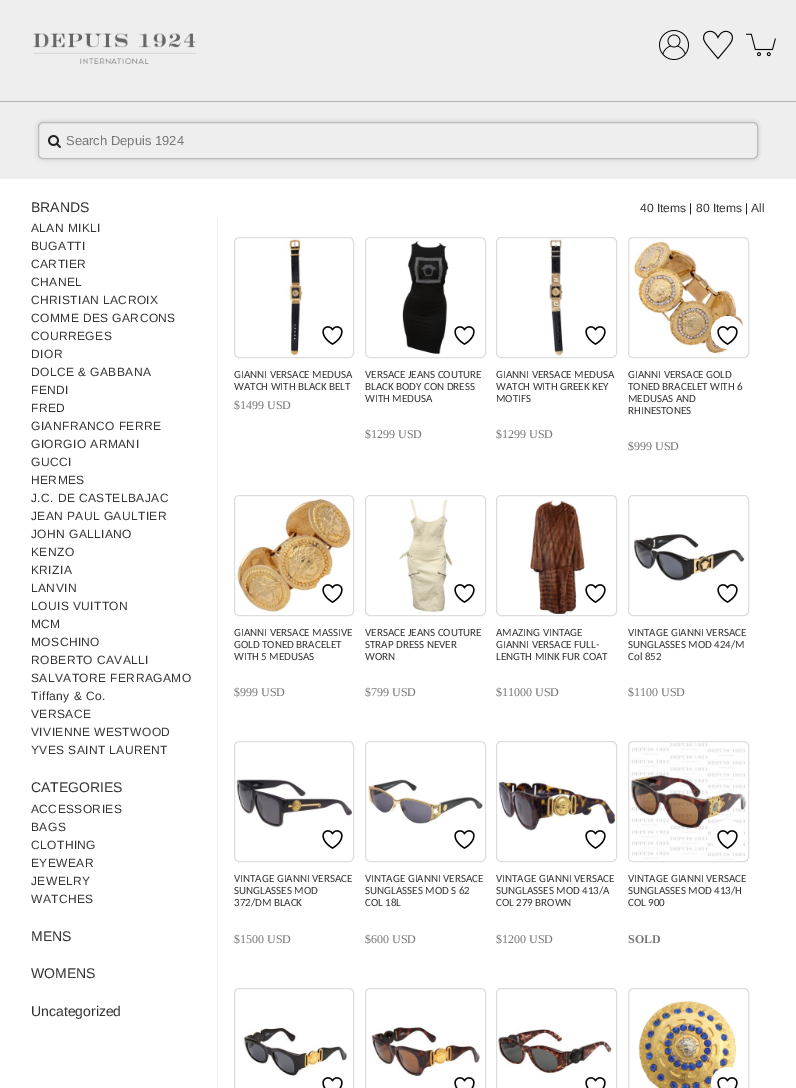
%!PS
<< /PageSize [796 1088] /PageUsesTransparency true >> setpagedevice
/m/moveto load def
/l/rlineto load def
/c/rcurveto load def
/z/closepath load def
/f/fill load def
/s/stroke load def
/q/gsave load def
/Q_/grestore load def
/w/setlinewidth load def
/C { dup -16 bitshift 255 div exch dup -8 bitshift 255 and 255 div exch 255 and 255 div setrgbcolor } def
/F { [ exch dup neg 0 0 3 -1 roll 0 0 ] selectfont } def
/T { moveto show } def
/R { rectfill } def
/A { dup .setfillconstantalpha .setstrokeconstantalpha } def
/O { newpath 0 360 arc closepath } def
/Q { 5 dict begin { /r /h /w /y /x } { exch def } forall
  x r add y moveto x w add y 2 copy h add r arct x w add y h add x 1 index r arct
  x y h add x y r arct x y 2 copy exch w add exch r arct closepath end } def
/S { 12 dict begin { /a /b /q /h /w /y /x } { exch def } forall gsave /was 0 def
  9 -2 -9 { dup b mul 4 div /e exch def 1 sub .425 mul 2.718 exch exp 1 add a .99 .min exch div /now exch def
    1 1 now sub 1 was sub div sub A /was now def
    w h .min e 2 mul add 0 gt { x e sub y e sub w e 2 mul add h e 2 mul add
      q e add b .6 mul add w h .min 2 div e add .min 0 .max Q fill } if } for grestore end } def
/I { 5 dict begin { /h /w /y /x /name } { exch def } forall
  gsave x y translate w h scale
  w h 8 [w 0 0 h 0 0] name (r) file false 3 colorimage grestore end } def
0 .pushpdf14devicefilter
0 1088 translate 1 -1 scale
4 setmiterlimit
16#FFFFFF C
0 0 796 1088 R
16#EEEEEE C
0 0 796 101 R
(1.rgb) 32 33 164 31 I
(2.rgb) 659 30 30 30 I
(3.rgb) 703 30 30 30 I
(4.rgb) 746 33 30 24 I
0 102 796 77 R
16#B1B1B1 C
0 101 796 1 R
q
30 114 m 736 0 l 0 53 l -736 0 l z 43 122 m 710 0 l 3 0 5 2 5 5 c 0 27 l 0 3 -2 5 -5 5 c -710 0 l -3 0 -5 -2 -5 -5 c 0 -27 l 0 -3 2 -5 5 -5 c z eoclip newpath
16#DDDDDD C
36 120 724 41 7 1.5 1 S
Q_
16#BBBBBB C
38.5 122.5 719 36 4.5 Q s
(5.rgb) 48 135 13 13 I
/LiberationSans-Regular 13 F
16#777777 C
(Search Depuis 1924) 66 145 T
/LiberationSans-Regular 14 F
16#333333 C
(BRANDS) 31 212 T
/LiberationSans-Regular 12 F
31 232 m .4 0 (ALAN MIKLI) ashow
31 250 m .4 0 (BUGATTI) ashow
31 268 m .4 0 (CARTIER) ashow
31 286 m .4 0 (CHANEL) ashow
31 304 m .4 0 (CHRISTIAN LACROIX) ashow
31 322 m .4 0 (COMME DES GARCONS) ashow
31 340 m .4 0 (COURREGES) ashow
31 358 m .4 0 (DIOR) ashow
31 376 m .4 0 (DOLCE & GABBANA) ashow
31 394 m .4 0 (FENDI) ashow
31 412 m .4 0 (FRED) ashow
31 430 m .4 0 (GIANFRANCO FERRE) ashow
31 448 m .4 0 (GIORGIO ARMANI) ashow
31 466 m .4 0 (GUCCI) ashow
31 484 m .4 0 (HERMES) ashow
31 502 m .4 0 (J.C. DE CASTELBAJAC) ashow
31 520 m .4 0 (JEAN PAUL GAULTIER) ashow
31 538 m .4 0 (JOHN GALLIANO) ashow
31 556 m .4 0 (KENZO) ashow
31 574 m .4 0 (KRIZIA) ashow
31 592 m .4 0 (LANVIN) ashow
31 610 m .4 0 (LOUIS VUITTON) ashow
31 628 m .4 0 (MCM) ashow
31 646 m .4 0 (MOSCHINO) ashow
31 664 m .4 0 (ROBERTO CAVALLI) ashow
31 682 m .4 0 (SALVATORE FERRAGAMO) ashow
31 700 m .4 0 (Tiffany & Co.) ashow
31 718 m .4 0 (VERSACE) ashow
31 736 m .4 0 (VIVIENNE WESTWOOD) ashow
31 754 m .4 0 (YVES SAINT LAURENT) ashow
/LiberationSans-Regular 14 F
(CATEGORIES) 31 792 T
/LiberationSans-Regular 12 F
31 813 m .4 0 (ACCESSORIES) ashow
31 831 m .4 0 (BAGS) ashow
31 849 m .4 0 (CLOTHING) ashow
31 867 m .4 0 (EYEWEAR) ashow
31 885 m .4 0 (JEWELRY) ashow
31 903 m .4 0 (WATCHES) ashow
/LiberationSans-Regular 14 F
(MENS) 31 941 T
(WOMENS) 31 978 T
(Uncategorized) 31 1016 T
/LiberationSans-Regular 12 F
(40 Items) 640 212 T
16#222222 C
(|) 689 212 T
16#333333 C
(80 Items) 696 212 T
16#222222 C
(|) 745 212 T
16#333333 C
(All) 751 212 T
16#EEEEEE C
217 217 1 871 R
16#DDDDDD C
234.5 237.5 119 120 4.5 Q s
(6.rgb) 286 239 18 117 I
(7.rgb) 322 326 21 19 I
/Carlito-Regular 11 F
16#333333 C
(GIANNI VERSACE MEDUSA) 234 378 T
(WATCH WITH BLACK BELT) 234 390 T
/LiberationSerif-Regular 12 F
16#777777 C
($1499 USD) 234 409 T
16#DDDDDD C
365.5 237.5 120 120 4.5 Q s
(8.rgb) 402 240 47 115 I
(7.rgb) 454 326 21 19 I
/Carlito-Regular 11 F
16#333333 C
(VERSACE JEANS COUTURE) 365 378 T
(BLACK BODY CON DRESS) 365 390 T
(WITH MEDUSA) 365 402 T
/LiberationSerif-Regular 12 F
16#777777 C
($1299 USD) 365 438 T
16#DDDDDD C
496.5 237.5 120 120 4.5 Q s
(9.rgb) 548 239 17 117 I
(7.rgb) 585 326 21 19 I
/Carlito-Regular 11 F
16#333333 C
(GIANNI VERSACE MEDUSA) 496 378 T
(WATCH WITH GREEK KEY) 496 390 T
(MOTIFS) 496 402 T
/LiberationSerif-Regular 12 F
16#777777 C
($1299 USD) 496 438 T
16#DDDDDD C
628.5 237.5 120 120 4.5 Q s
(10.rgb) 630 239 115 117 I
16#FFFFFF C
727.5 332.5 15.5 O q f Q_
2 w
s
(7.rgb) 717 326 21 19 I
/Carlito-Regular 11 F
16#333333 C
(GIANNI VERSACE GOLD) 628 378 T
(TONED BRACELET WITH 6) 628 390 T
(MEDUSAS AND) 628 402 T
(RHINESTONES) 628 414 T
/LiberationSerif-Regular 12 F
16#777777 C
($999 USD) 628 450 T
16#DDDDDD C
1 w
234.5 495.5 119 120 4.5 Q s
(11.rgb) 236 497 116 117 I
16#FFFFFF C
332.5 590.5 15.5 O q f Q_
2 w
s
(7.rgb) 322 584 21 19 I
/Carlito-Regular 11 F
16#333333 C
(GIANNI VERSACE MASSIVE) 234 636 T
(GOLD TONED BRACELET) 234 648 T
(WITH 5 MEDUSAS) 234 660 T
/LiberationSerif-Regular 12 F
16#777777 C
($999 USD) 234 696 T
16#DDDDDD C
1 w
365.5 495.5 120 120 4.5 Q s
(12.rgb) 398 499 56 114 I
(7.rgb) 454 584 21 19 I
/Carlito-Regular 11 F
16#333333 C
(VERSACE JEANS COUTURE) 365 636 T
(STRAP DRESS NEVER) 365 648 T
(WORN) 365 660 T
/LiberationSerif-Regular 12 F
16#777777 C
($799 USD) 365 696 T
16#DDDDDD C
496.5 495.5 120 120 4.5 Q s
(13.rgb) 529 500 56 114 I
(7.rgb) 585 584 21 19 I
/Carlito-Regular 11 F
16#333333 C
(AMAZING VINTAGE) 496 636 T
(GIANNI VERSACE FULL-) 496 648 T
(LENGTH MINK FUR COAT) 496 660 T
/LiberationSerif-Regular 12 F
16#777777 C
($11000 USD) 496 696 T
16#DDDDDD C
628.5 495.5 120 120 4.5 Q s
(14.rgb) 633 534 112 47 I
(7.rgb) 717 584 21 19 I
/Carlito-Regular 11 F
16#333333 C
(VINTAGE GIANNI VERSACE) 628 636 T
(SUNGLASSES MOD 424/M) 628 648 T
(Col 852) 628 660 T
/LiberationSerif-Regular 12 F
16#777777 C
($1100 USD) 628 696 T
16#DDDDDD C
234.5 741.5 119 120 4.5 Q s
(15.rgb) 236 779 116 49 I
(7.rgb) 322 830 21 19 I
/Carlito-Regular 11 F
16#333333 C
(VINTAGE GIANNI VERSACE) 234 882 T
(SUNGLASSES MOD) 234 894 T
(372/DM BLACK) 234 906 T
/LiberationSerif-Regular 12 F
16#777777 C
($1500 USD) 234 943 T
16#DDDDDD C
365.5 741.5 120 120 4.5 Q s
(16.rgb) 367 779 116 45 I
(7.rgb) 454 830 21 19 I
/Carlito-Regular 11 F
16#333333 C
(VINTAGE GIANNI VERSACE) 365 882 T
(SUNGLASSES MOD S 62) 365 894 T
(COL 18L) 365 906 T
/LiberationSerif-Regular 12 F
16#777777 C
($600 USD) 365 943 T
16#DDDDDD C
496.5 741.5 120 120 4.5 Q s
(17.rgb) 498 780 117 51 I
16#FFFFFF C
595.5 836.5 16.5 O f
(7.rgb) 585 830 21 19 I
/Carlito-Regular 11 F
16#333333 C
(VINTAGE GIANNI VERSACE) 496 882 T
(SUNGLASSES MOD 413/A) 496 894 T
(COL 279 BROWN) 496 906 T
/LiberationSerif-Regular 12 F
16#777777 C
($1200 USD) 496 943 T
16#DDDDDD C
628.5 741.5 120 120 4.5 Q s
(18.rgb) 630 743 117 117 I
16#FFFFFF C
727.5 836.5 15.5 O q f Q_
2 w
s
(7.rgb) 717 830 21 19 I
/Carlito-Regular 11 F
16#333333 C
(VINTAGE GIANNI VERSACE) 628 882 T
(SUNGLASSES MOD 413/H) 628 894 T
(COL 900) 628 906 T
/LiberationSerif-Bold 12 F
16#777777 C
(SOLD) 628 943 T
16#DDDDDD C
1 w
234.5 988.5 119 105 4.5 Q s
(19.rgb) 242 1027 105 50 I
(20.rgb) 322 1077 21 11 I
365.5 988.5 120 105 4.5 Q s
(21.rgb) 371 1027 109 50 I
(20.rgb) 454 1077 21 11 I
496.5 988.5 120 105 4.5 Q s
(22.rgb) 498 1028 115 47 I
(20.rgb) 585 1077 21 11 I
628.5 988.5 120 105 4.5 Q s
(23.rgb) 637 1000 99 88 I
16#FFFFFF C
727.5 1083.5 15.5 O q f Q_
2 w
s
(20.rgb) 717 1077 21 11 I
.poppdf14devicefilter showpage
